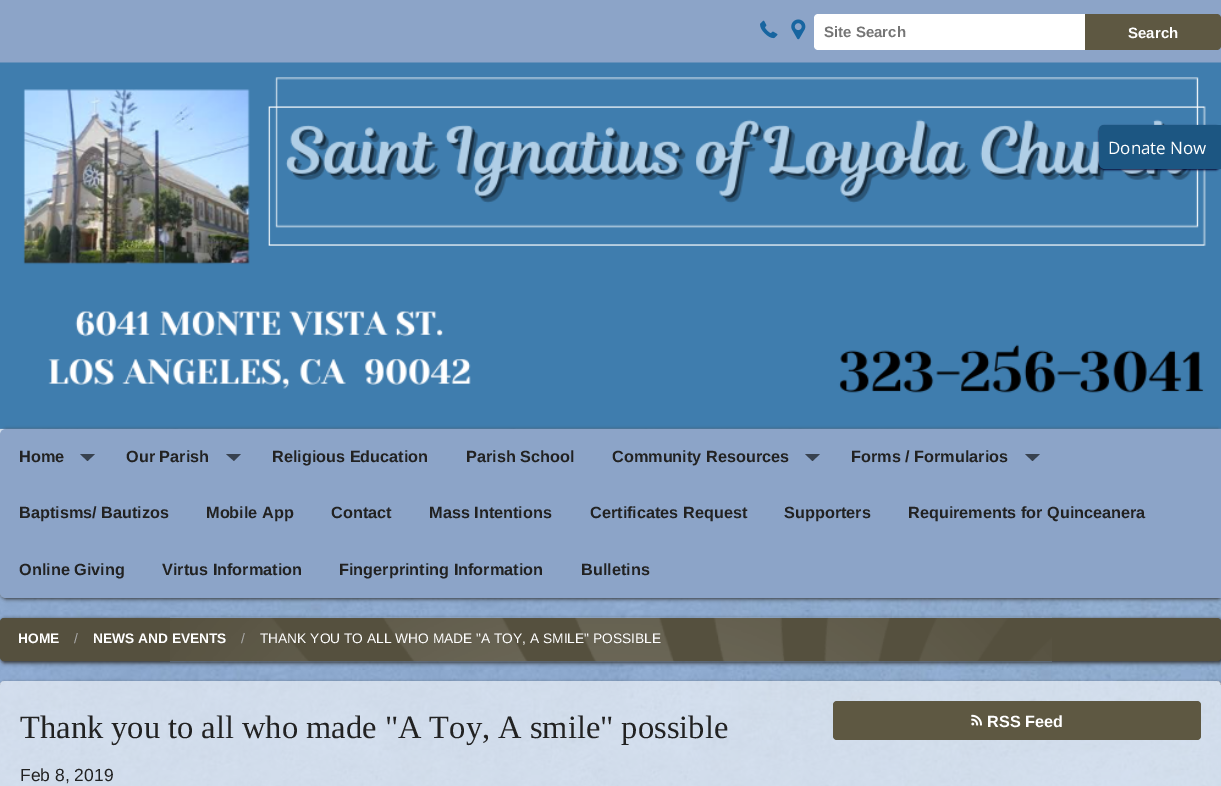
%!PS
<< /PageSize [1221 786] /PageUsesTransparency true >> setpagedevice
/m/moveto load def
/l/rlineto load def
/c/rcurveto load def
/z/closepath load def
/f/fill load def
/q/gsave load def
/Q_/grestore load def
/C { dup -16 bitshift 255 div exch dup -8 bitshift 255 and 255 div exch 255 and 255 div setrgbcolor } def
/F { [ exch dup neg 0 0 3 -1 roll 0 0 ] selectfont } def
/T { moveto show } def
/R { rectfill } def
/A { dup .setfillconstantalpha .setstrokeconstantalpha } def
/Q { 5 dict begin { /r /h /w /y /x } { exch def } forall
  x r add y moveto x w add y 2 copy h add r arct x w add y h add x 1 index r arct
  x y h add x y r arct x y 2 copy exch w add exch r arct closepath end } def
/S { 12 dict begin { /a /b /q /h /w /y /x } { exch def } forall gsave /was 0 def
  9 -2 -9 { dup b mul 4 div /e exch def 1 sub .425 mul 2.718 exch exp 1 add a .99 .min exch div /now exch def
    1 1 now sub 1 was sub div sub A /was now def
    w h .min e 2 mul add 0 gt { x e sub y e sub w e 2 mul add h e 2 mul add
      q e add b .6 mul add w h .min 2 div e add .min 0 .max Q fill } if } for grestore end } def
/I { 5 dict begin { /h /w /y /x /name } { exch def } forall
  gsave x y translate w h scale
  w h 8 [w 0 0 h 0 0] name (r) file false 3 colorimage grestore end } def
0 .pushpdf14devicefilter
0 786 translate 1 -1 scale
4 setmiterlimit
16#FFFFFF C
0 0 1221 786 R
(1.rgb) 0 428 1221 358 I
16#8CA4C8 C
0 0 1221 63 R
(2.rgb) 760 20 18 19 I
(3.rgb) 791 19 15 21 I
16#FFFFFF C
818 14 m 267 0 l 0 36 l -267 0 l -2 0 -4 -2 -4 -4 c 0 -28 l 0 -2 2 -4 4 -4 c z f
/LiberationSans-Bold 15 F
16#757575 C
(Site Search) 824 37 T
16#5E5842 C
1085 14 m 132 0 l 2 0 4 2 4 4 c 0 28 l 0 2 -2 4 -4 4 c -132 0 l z f
16#FFFFFF C
(Search) 1128 38 T
(4.rgb) 0 62 1221 367 I
0.6 A
0 429 m 1221 0 l 0 163 l 0 3.5 -2.5 6 -6 6 c -1209 0 l -3.5 0 -6 -2.5 -6 -6 c z f
q
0 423 m 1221 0 l 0 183 l -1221 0 l z 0 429 m 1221 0 l 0 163 l 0 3.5 -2.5 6 -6 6 c -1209 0 l -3.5 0 -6 -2.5 -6 -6 c z eoclip newpath
1 A
16#333333 C
1 430 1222 169 6 2 1 S
Q_
1 A
16#8CA4C8 C
6 429 m 1215 0 l 0 169 l -1215 0 l -3.5 0 -6 -2.5 -6 -6 c 0 -157 l 0 -3.5 2.5 -6 6 -6 c z f
/LiberationSans-Bold 16.25 F
16#222222 C
(Home) 19 462 T
16#384250 C
80 454 m 15 0 l -7.5 7 l z f
16#222222 C
(Our Parish) 126 462 T
16#384250 C
226 454 m 15 0 l -7 7 l z f
16#222222 C
(Religious Education) 272 462 T
(Parish School) 466 462 T
(Community Resources) 612 462 T
16#384250 C
805 454 m 15 0 l -7.5 7 l z f
16#222222 C
(Forms / Formularios) 851 462 T
16#384250 C
1025 454 m 15 0 l -7.5 7 l z f
16#222222 C
(Baptisms/ Bautizos) 19 518 T
(Mobile App) 206 518 T
(Contact) 331 518 T
(Mass Intentions) 429 518 T
(Certificates Request) 590 518 T
(Supporters) 784 518 T
(Requirements for Quinceanera) 908 518 T
(Online Giving) 19 575 T
(Virtus Information) 162 575 T
(Fingerprinting Information) 339 575 T
(Bulletins) 581 575 T
16#000029 C
1099 126 122 44 6 1 1 S
16#1C5682 C
1104 125 m 117 0 l 0 44 l -116 0 l -3.5 0 -6 -2.5 -6 -6 c 0 -33 l 0 -3 2 -5 5 -5 c z f
/OpenSans-Regular 17 F
16#FFFFFF C
(Donate Now) 1108 154 T
16#333333 C
1 619 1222 44 4 2 1 S
16#55503E C
0 618 1221 43 4 Q f
(5.rgb) 170 617 882 45 I
/LiberationSans-Bold 13.75 F
16#FFFFFF C
(HOME) 18 643 T
/LiberationSans-Regular 13.75 F
16#AAAAAA C
(/) 74 643 T
/LiberationSans-Bold 13.75 F
16#FFFFFF C
(NEWS AND EVENTS) 93 643 T
/LiberationSans-Regular 13.75 F
16#AAAAAA C
(/) 241 643 T
16#FFFFFF C
(THANK YOU TO ALL WHO MADE "A TOY, A SMILE" POSSIBLE) 260 643 T
q
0 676 m 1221 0 l 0 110 l -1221 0 l z 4 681 m 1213 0 l 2 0 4 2 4 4 c 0 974 l 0 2 -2 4 -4 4 c -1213 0 l -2 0 -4 -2 -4 -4 c 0 -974 l 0 -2 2 -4 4 -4 c z eoclip newpath
16#333333 C
1 683 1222 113 4 2 1 S
Q_
0.6 A
0 681 1221 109 4 Q f
/LiberationSerif-Regular 32.5 F
1 A
16#222222 C
(Thank you to all who made "A Toy, A smile" possible) 20 738 T
/LiberationSans-Regular 17.5 F
(Feb 8, 2019) 20 781 T
16#5E5842 C
833 701 368 39 4 Q f
(6.rgb) 971 714 11 12 I
/LiberationSans-Bold 16.25 F
16#FFFFFF C
(RSS Feed) 987 727 T
.poppdf14devicefilter showpage
